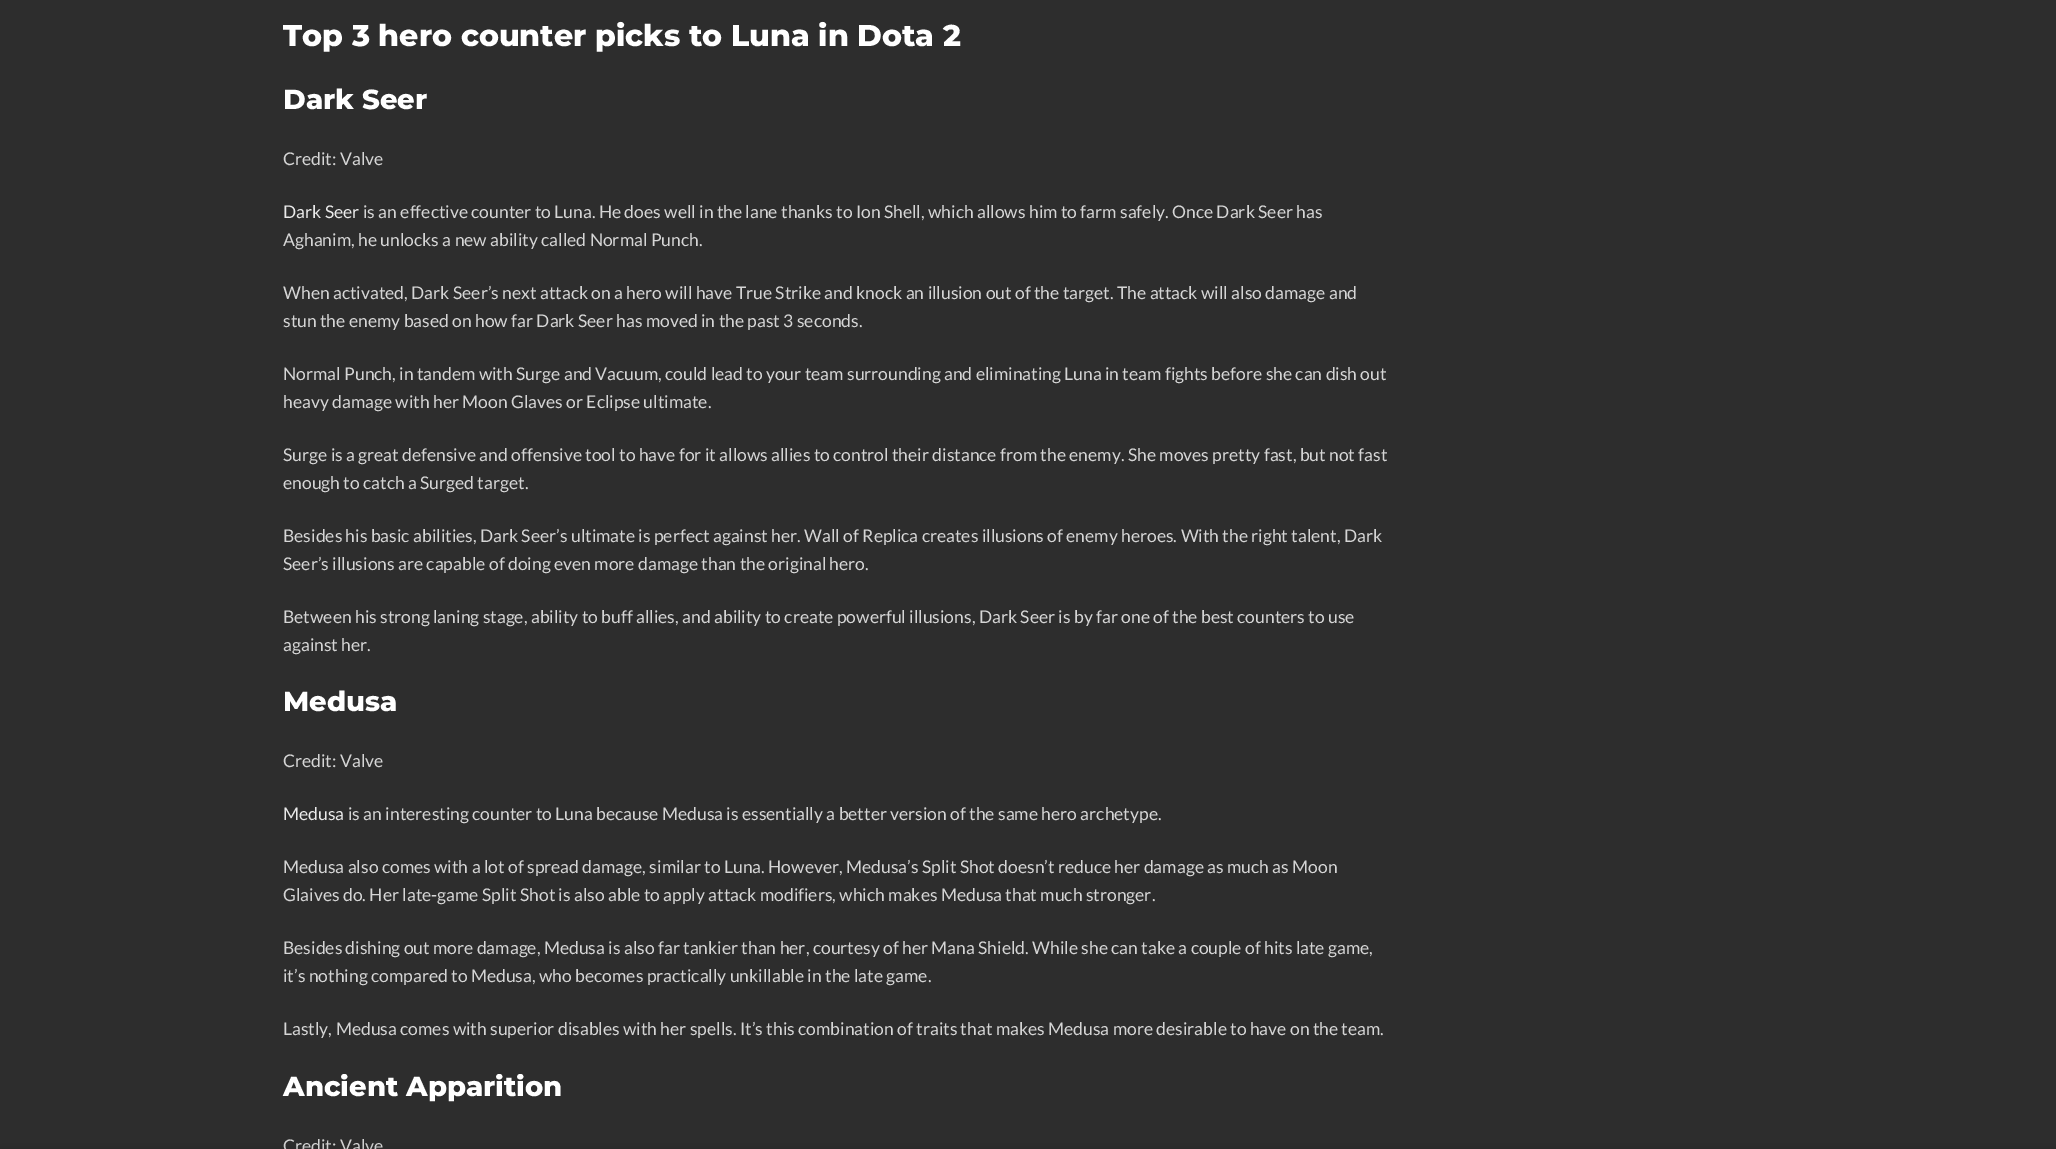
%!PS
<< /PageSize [2056 1149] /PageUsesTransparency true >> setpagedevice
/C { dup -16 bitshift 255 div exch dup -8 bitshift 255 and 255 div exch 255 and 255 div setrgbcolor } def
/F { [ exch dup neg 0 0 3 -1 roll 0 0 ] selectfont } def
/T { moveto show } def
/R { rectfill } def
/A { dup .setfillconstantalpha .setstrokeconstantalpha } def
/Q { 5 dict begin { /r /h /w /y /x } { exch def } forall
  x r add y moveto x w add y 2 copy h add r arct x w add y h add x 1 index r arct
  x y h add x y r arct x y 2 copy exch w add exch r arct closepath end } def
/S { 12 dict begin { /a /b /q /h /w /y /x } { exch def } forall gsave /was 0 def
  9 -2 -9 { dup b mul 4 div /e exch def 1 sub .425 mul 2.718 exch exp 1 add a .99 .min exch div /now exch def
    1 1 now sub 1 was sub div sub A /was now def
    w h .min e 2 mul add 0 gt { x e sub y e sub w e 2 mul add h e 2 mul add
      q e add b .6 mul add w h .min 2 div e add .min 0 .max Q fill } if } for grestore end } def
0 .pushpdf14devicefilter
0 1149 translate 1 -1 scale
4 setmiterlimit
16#2D2D2D C
0 0 2056 1149 R
/Montserrat-ExtraBold 30 F
16#FFFFFF C
(Top 3 hero counter picks to Luna in Dota 2) 283 46 T
/Montserrat-ExtraBold 27.5 F
(Dark Seer) 283 109 T
/Lato-Regular 17.5 F
16#D5D5D5 C
(Credit: Valve) 283 165 T
16#EAEAEA C
(Dark Seer) 283 218 T
16#D5D5D5 C
(is an effective counter to Luna. He does well in the lane thanks to Ion Shell, which allows him to farm safely. Once Dark Seer has) 363 218 T
(Aghanim, he unlocks a new ability called Normal Punch.) 283 246 T
(When activated, Dark Seer’s next attack on a hero will have True Strike and knock an illusion out of the target. The attack will also damage and) 283 299 T
(stun the enemy based on how far Dark Seer has moved in the past 3 seconds.) 283 327 T
(Normal Punch, in tandem with Surge and Vacuum, could lead to your team surrounding and eliminating Luna in team fights before she can dish out) 283 380 T
(heavy damage with her Moon Glaves or Eclipse ultimate.) 283 408 T
(Surge is a great defensive and offensive tool to have for it allows allies to control their distance from the enemy. She moves pretty fast, but not fast) 283 461 T
(enough to catch a Surged target.) 283 489 T
(Besides his basic abilities, Dark Seer’s ultimate is perfect against her. Wall of Replica creates illusions of enemy heroes. With the right talent, Dark) 283 542 T
(Seer’s illusions are capable of doing even more damage than the original hero.) 283 570 T
(Between his strong laning stage, ability to buff allies, and ability to create powerful illusions, Dark Seer is by far one of the best counters to use) 283 623 T
(against her.) 283 651 T
/Montserrat-ExtraBold 27.5 F
16#FFFFFF C
(Medusa) 283 711 T
/Lato-Regular 17.5 F
16#D5D5D5 C
(Credit: Valve) 283 767 T
16#EAEAEA C
(Medusa) 283 820 T
16#D5D5D5 C
(is an interesting counter to Luna because Medusa is essentially a better version of the same hero archetype.) 348 820 T
(Medusa also comes with a lot of spread damage, similar to Luna. However, Medusa’s Split Shot doesn’t reduce her damage as much as Moon) 283 873 T
(Glaives do. Her late-game Split Shot is also able to apply attack modifiers, which makes Medusa that much stronger.) 283 901 T
(Besides dishing out more damage, Medusa is also far tankier than her, courtesy of her Mana Shield. While she can take a couple of hits late game,) 283 954 T
(it’s nothing compared to Medusa, who becomes practically unkillable in the late game.) 283 982 T
(Lastly, Medusa comes with superior disables with her spells. It’s this combination of traits that makes Medusa more desirable to have on the team.) 283 1035 T
/Montserrat-ExtraBold 27.5 F
16#FFFFFF C
(Ancient Apparition) 283 1096 T
/Lato-Regular 17.5 F
16#D5D5D5 C
(Credit: Valve) 283 1152 T
16#000000 C
0 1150 2056 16 0 5.5 .14 S
.poppdf14devicefilter showpage
